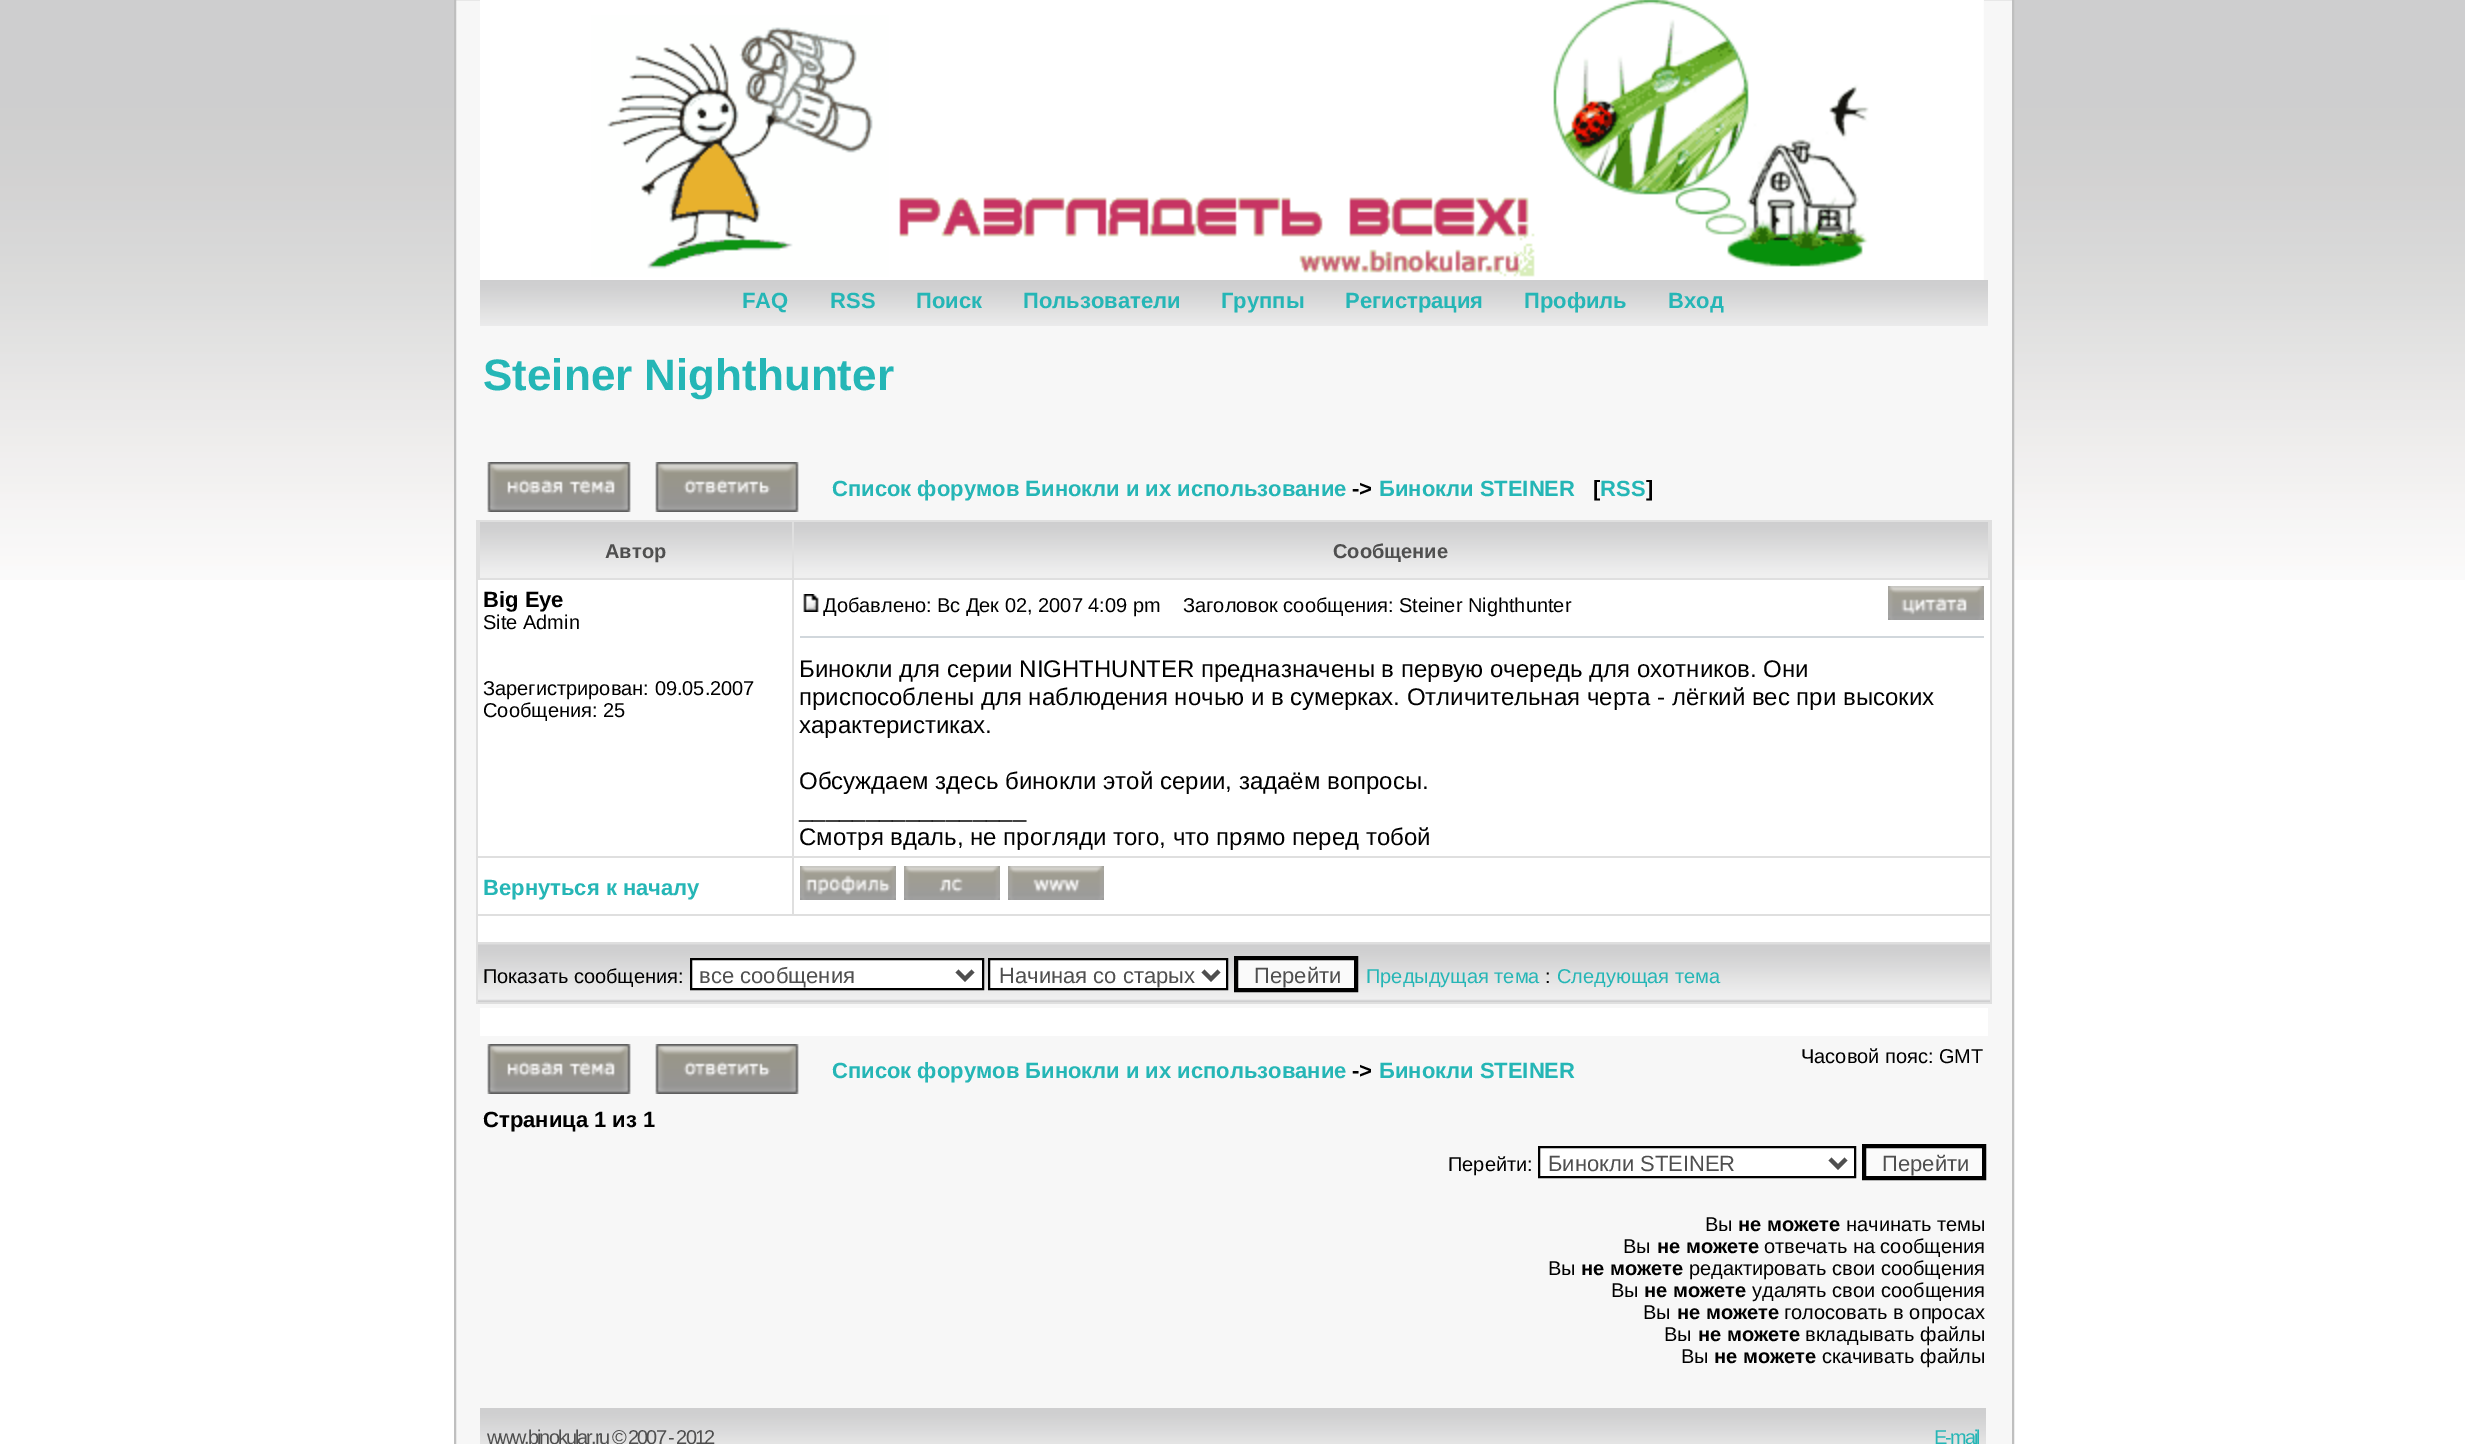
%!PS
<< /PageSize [2465 1444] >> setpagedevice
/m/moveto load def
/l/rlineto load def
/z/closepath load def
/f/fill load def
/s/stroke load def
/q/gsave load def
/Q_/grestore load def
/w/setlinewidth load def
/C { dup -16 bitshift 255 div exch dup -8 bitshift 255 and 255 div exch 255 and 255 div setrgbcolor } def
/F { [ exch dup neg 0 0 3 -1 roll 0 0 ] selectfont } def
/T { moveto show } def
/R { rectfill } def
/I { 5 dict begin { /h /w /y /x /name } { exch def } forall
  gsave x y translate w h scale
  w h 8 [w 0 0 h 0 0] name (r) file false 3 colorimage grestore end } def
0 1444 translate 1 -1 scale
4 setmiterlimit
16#FFFFFF C
0 0 2465 1444 R
(1.rgb) 0 0 2465 580 I
16#F7F7F7 C
455 -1 m 1558 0 l 0 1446 l -1558 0 l z q f Q_
16#BFBFBF C
2 w
s
(2.rgb) 480 0 1504 280 I
(3.rgb) 480 280 1508 46 I
/LiberationSans-Bold 22 F
16#25B6B6 C
(FAQ) 742 308 T
(RSS) 830 308 T
(Поиск) 916 308 T
(Пользователи) 1023 308 T
(Группы) 1221 308 T
(Регистрация) 1345 308 T
(Профиль) 1524 308 T
(Вход) 1668 308 T
/LiberationSans-Bold 44 F
(Steiner Nighthunter) 483 390 T
(4.rgb) 487 462 144 50 I
(5.rgb) 655 462 144 50 I
/LiberationSans-Bold 22 F
(Список форумов Бинокли и их использование) 832 496 T
16#000000 C
(->) 1352 496 T
16#25B6B6 C
(Бинокли STEINER) 1379 496 T
16#000000 C
([) 1593 496 T
16#25B6B6 C
(RSS) 1600 496 T
16#000000 C
(]) 1646 496 T
16#DFDFDF C
476 520 1516 484 R
(6.rgb) 480 522 312 56 I
/LiberationSans-Bold 20 F
16#4F4F4F C
(Автор) 605 558 T
(7.rgb) 794 522 1194 56 I
(Сообщение) 1333 558 T
16#FFFFFF C
478 580 314 276 R
/LiberationSans-Bold 22 F
16#000000 C
(Big Eye) 483 607 T
/LiberationSans-Regular 20 F
(Site Admin) 483 629 T
(Зарегистрирован: 09.05.2007) 483 695 T
(Сообщения: 25) 483 717 T
16#FFFFFF C
794 580 1196 276 R
(8.rgb) 803 594 16 18 I
16#000000 C
(Добавлено: Вс Дек 02, 2007 4:09 pm) 823 612 T
(Заголовок сообщения: Steiner Nighthunter) 1183 612 T
(9.rgb) 1888 586 96 34 I
16#D1D7DC C
800 636 1184 2 R
/LiberationSans-Regular 24 F
16#000000 C
(Бинокли для серии NIGHTHUNTER предназначены в первую очередь для охотников. Они) 799 677 T
(приспособлены для наблюдения ночью и в сумерках. Отличительная черта - лёгкий вес при высоких) 799 705 T
(характеристиках.) 799 733 T
(Обсуждаем здесь бинокли этой серии, задаём вопросы.) 799 789 T
(_________________) 799 817 T
(Смотря вдаль, не прогляди того, что прямо перед тобой) 799 845 T
16#FFFFFF C
478 858 314 56 R
/LiberationSans-Bold 22 F
16#25B6B6 C
(Вернуться к началу) 483 895 T
16#FFFFFF C
794 858 1196 56 R
(10.rgb) 800 866 96 34 I
(11.rgb) 904 866 96 34 I
(12.rgb) 1008 866 96 34 I
478 916 1512 26 R
(13.rgb) 478 944 1512 58 I
/LiberationSans-Regular 20 F
16#000000 C
(Показать сообщения:) 483 983 T
16#FFFFFF C
691 959 m 292 0 l 0 30 l -292 0 l z q f Q_
16#000000 C
s
16#4F4F4F C
4 w
957 971 m 8 8 l 8 -8 l s
/LiberationSans-Regular 22 F
(все сообщения) 699 983 T
16#FFFFFF C
989 959 m 238 0 l 0 30 l -238 0 l z q f Q_
16#000000 C
2 w
s
16#4F4F4F C
4 w
1203 971 m 8 8 l 8 -8 l s
(Начиная со старых) 999 983 T
16#FAFAFA C
1236 958 m 120 0 l 0 32 l -120 0 l z q f Q_
16#000000 C
s
16#4F4F4F C
(Перейти) 1254 983 T
/LiberationSans-Regular 20 F
16#25B6B6 C
(Предыдущая тема) 1366 983 T
16#000000 C
(:) 1545 983 T
16#25B6B6 C
(Следующая тема) 1557 983 T
16#FFFFFF C
480 1008 1508 28 R
(4.rgb) 487 1044 144 50 I
(5.rgb) 655 1044 144 50 I
16#000000 C
(Часовой пояс: GMT) 1801 1063 T
/LiberationSans-Bold 22 F
16#25B6B6 C
(Список форумов Бинокли и их использование) 832 1078 T
16#000000 C
(->) 1352 1078 T
16#25B6B6 C
(Бинокли STEINER) 1379 1078 T
16#000000 C
(Страница 1 из 1) 483 1127 T
/LiberationSans-Regular 20 F
(Перейти:) 1448 1171 T
16#FFFFFF C
1539 1147 m 316 0 l 0 30 l -316 0 l z q f Q_
16#000000 C
2 w
s
16#4F4F4F C
4 w
1830 1159 m 8 8 l 8 -8 l s
/LiberationSans-Regular 22 F
(Бинокли STEINER) 1548 1171 T
16#FAFAFA C
1864 1146 m 120 0 l 0 32 l -120 0 l z q f Q_
16#000000 C
s
16#4F4F4F C
(Перейти) 1882 1171 T
/LiberationSans-Regular 20 F
16#000000 C
(Вы) 1705 1231 T
/LiberationSans-Bold 20 F
(не можете) 1738 1231 T
/LiberationSans-Regular 20 F
(начинать темы) 1846 1231 T
(Вы) 1623 1253 T
/LiberationSans-Bold 20 F
(не можете) 1657 1253 T
/LiberationSans-Regular 20 F
(отвечать на сообщения) 1764 1253 T
(Вы) 1548 1275 T
/LiberationSans-Bold 20 F
(не можете) 1581 1275 T
/LiberationSans-Regular 20 F
(редактировать свои сообщения) 1689 1275 T
(Вы) 1611 1297 T
/LiberationSans-Bold 20 F
(не можете) 1644 1297 T
/LiberationSans-Regular 20 F
(удалять свои сообщения) 1752 1297 T
(Вы) 1643 1319 T
/LiberationSans-Bold 20 F
(не можете) 1677 1319 T
/LiberationSans-Regular 20 F
(голосовать в опросах) 1784 1319 T
(Вы) 1664 1341 T
/LiberationSans-Bold 20 F
(не можете) 1698 1341 T
/LiberationSans-Regular 20 F
(вкладывать файлы) 1805 1341 T
(Вы) 1681 1363 T
/LiberationSans-Bold 20 F
(не можете) 1714 1363 T
/LiberationSans-Regular 20 F
(скачивать файлы) 1822 1363 T
(14.rgb) 480 1408 1232 36 I
16#4F4F4F C
487 1444 m -2 0 (www.binokular.ru © 2007 - 2012) ashow
(15.rgb) 1712 1408 274 36 I
16#25B6B6 C
1934 1444 m -2 0 (E-mail) ashow
showpage
